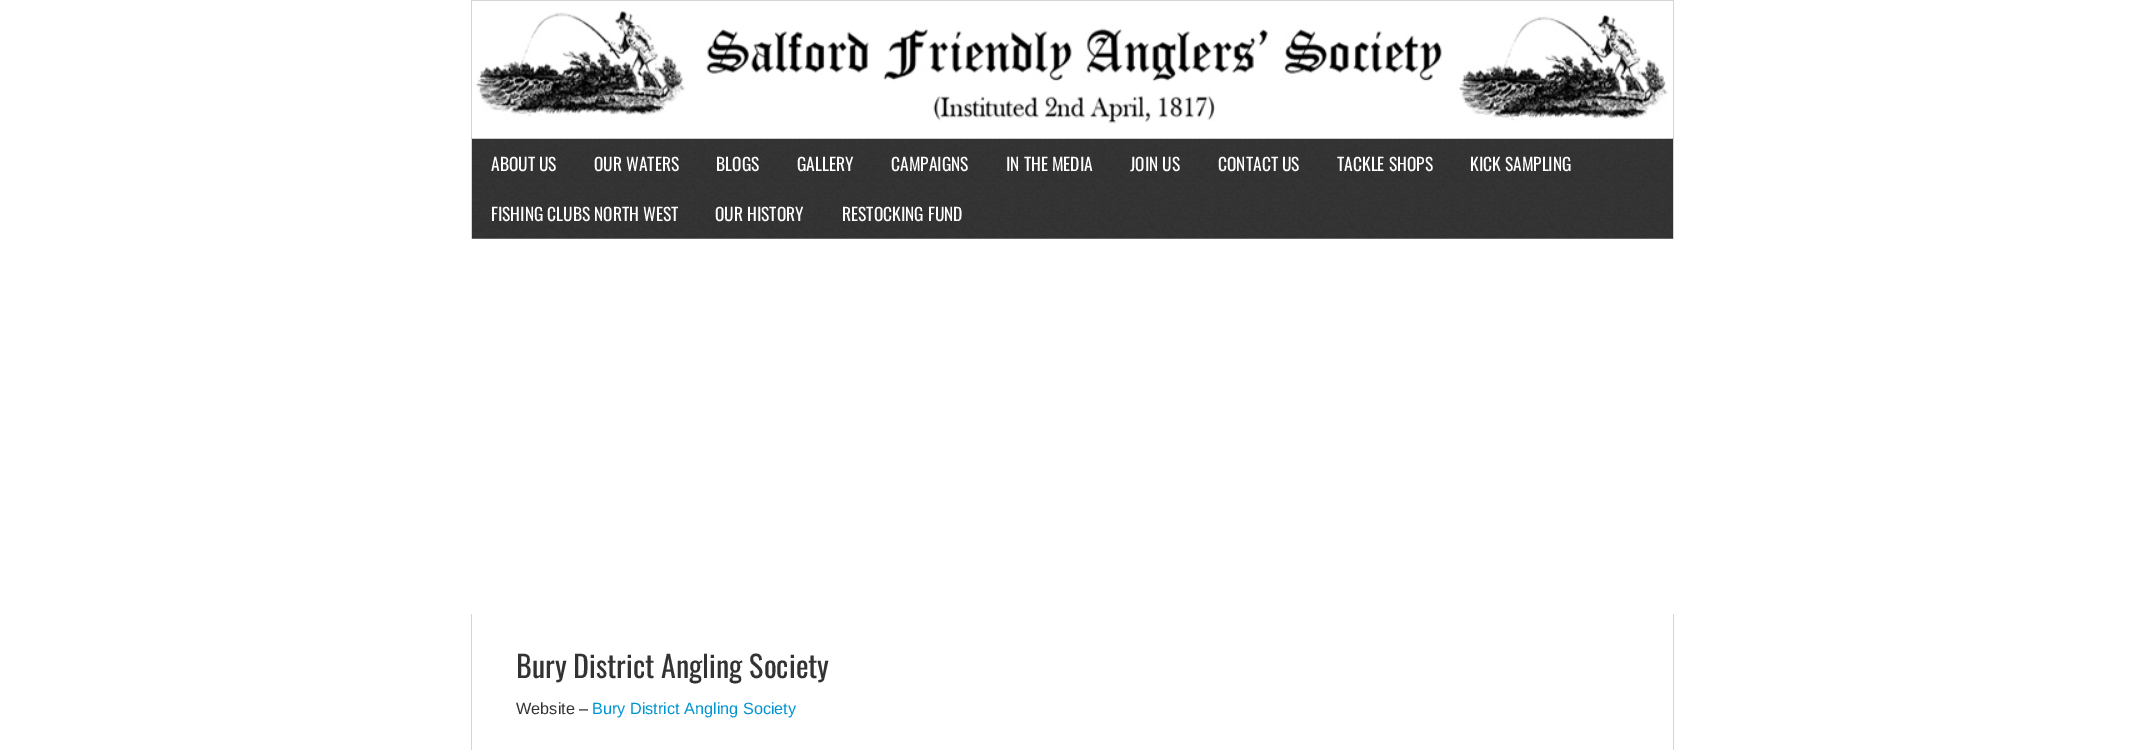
%!PS
<< /PageSize [2143 750] >> setpagedevice
/C { dup -16 bitshift 255 div exch dup -8 bitshift 255 and 255 div exch 255 and 255 div setrgbcolor } def
/F { [ exch dup neg 0 0 3 -1 roll 0 0 ] selectfont } def
/T { moveto show } def
/R { rectfill } def
/I { 5 dict begin { /h /w /y /x /name } { exch def } forall
  gsave x y translate w h scale
  w h 8 [w 0 0 h 0 0] name (r) file false 3 colorimage grestore end } def
0 750 translate 1 -1 scale
4 setmiterlimit
16#FFFFFF C
0 0 2143 750 R
(1.rgb) 476 11 1192 113 I
16#D5D5D5 C
471 0 1203 1 R
1673 0 1 139 R
471 0 1 139 R
(2.rgb) 471 138 1203 101 I
1673 139 1 100 R
471 139 1 100 R
/Oswald-Regular 17.5 F
16#FFFFFF C
(ABOUT US) 491 171 T
(OUR WATERS) 594 171 T
(BLOGS) 716 171 T
(GALLERY) 797 171 T
(CAMPAIGNS) 891 171 T
(IN THE MEDIA) 1006 171 T
(JOIN US) 1130 171 T
(CONTACT US) 1218 171 T
(TACKLE SHOPS) 1337 171 T
(KICK SAMPLING) 1470 171 T
(FISHING CLUBS NORTH WEST) 491 221 T
(OUR HISTORY) 715 221 T
(RESTOCKING FUND) 842 221 T
16#D5D5D5 C
1673 614 1 136 R
471 614 1 136 R
/Oswald-Regular 30 F
16#333333 C
(Bury District Angling Society) 516 678 T
/LiberationSans-Regular 16.25 F
(Website –) 516 714 T
16#0094D2 C
(Bury District Angling Society) 592 714 T
showpage
